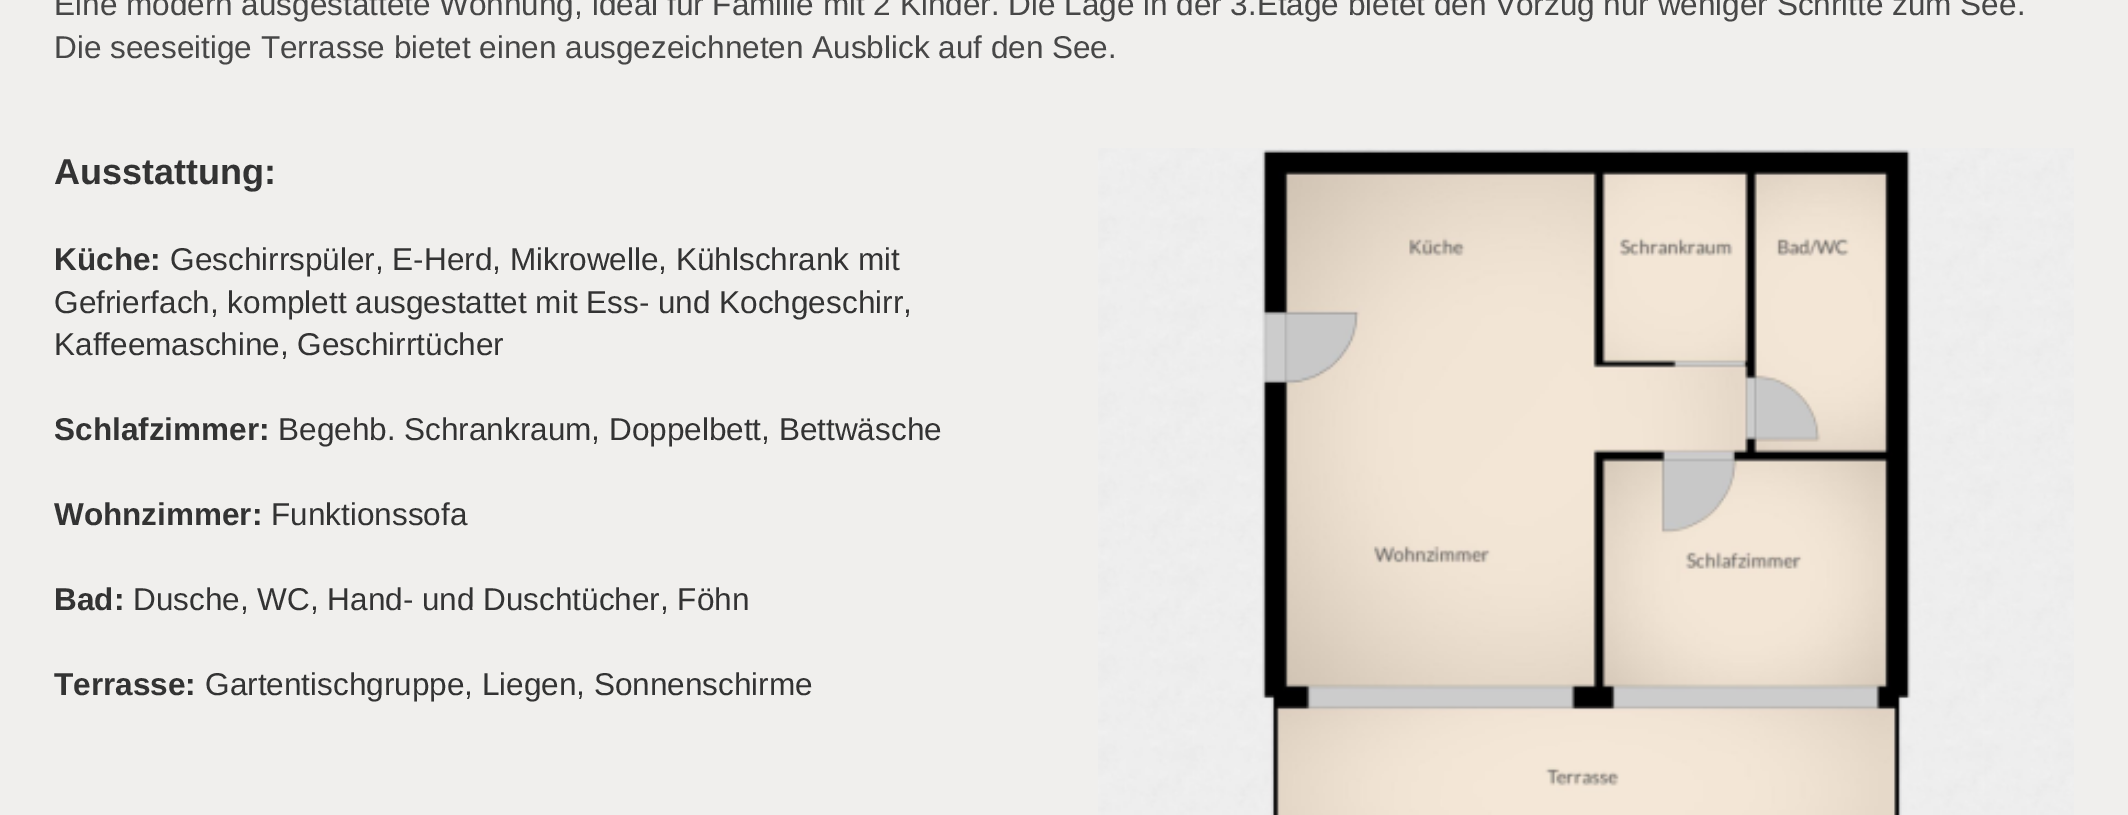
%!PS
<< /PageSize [2128 815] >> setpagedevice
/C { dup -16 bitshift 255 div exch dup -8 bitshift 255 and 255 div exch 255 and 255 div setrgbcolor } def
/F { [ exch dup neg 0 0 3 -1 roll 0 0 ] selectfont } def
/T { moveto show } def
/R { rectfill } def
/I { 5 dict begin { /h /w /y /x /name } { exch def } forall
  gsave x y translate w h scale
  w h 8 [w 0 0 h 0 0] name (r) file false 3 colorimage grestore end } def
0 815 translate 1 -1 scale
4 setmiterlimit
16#F0EFED C
0 0 2128 815 R
/LiberationSans-Regular 31.5 F
16#474747 C
(Eine modern ausgestattete Wohnung, ideal für Familie mit 2 Kinder. Die Lage in der 3.Etage bietet den Vorzug nur weniger Schritte zum See.) 54 15 T
(Die seeseitige Terrasse bietet einen ausgezeichneten Ausblick auf den See.) 54 58 T
/LiberationSans-Bold 36 F
16#333333 C
(Ausstattung:) 54 184 T
/LiberationSans-Bold 31.5 F
(Küche:) 54 270 T
/LiberationSans-Regular 31.5 F
(Geschirrspüler, E-Herd, Mikrowelle, Kühlschrank mit) 170 270 T
(Gefrierfach, komplett ausgestattet mit Ess- und Kochgeschirr,) 54 313 T
(Kaffeemaschine, Geschirrtücher) 54 355 T
/LiberationSans-Bold 31.5 F
(Schlafzimmer:) 54 440 T
/LiberationSans-Regular 31.5 F
(Begehb. Schrankraum, Doppelbett, Bettwäsche) 278 440 T
/LiberationSans-Bold 31.5 F
(Wohnzimmer:) 54 525 T
/LiberationSans-Regular 31.5 F
(Funktionssofa) 271 525 T
/LiberationSans-Bold 31.5 F
(Bad:) 54 610 T
/LiberationSans-Regular 31.5 F
(Dusche, WC, Hand- und Duschtücher, Föhn) 133 610 T
/LiberationSans-Bold 31.5 F
(Terrasse:) 54 695 T
/LiberationSans-Regular 31.5 F
(Gartentischgruppe, Liegen, Sonnenschirme) 205 695 T
(1.rgb) 1098 148 976 667 I
showpage
